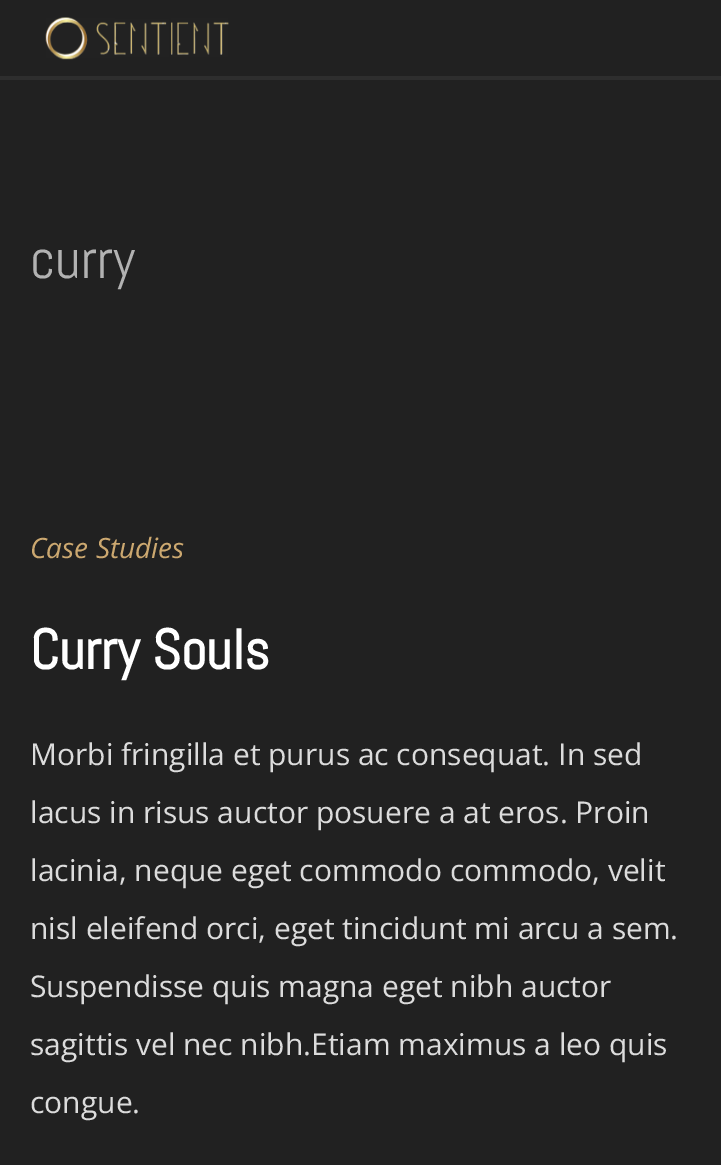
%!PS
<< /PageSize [721 1165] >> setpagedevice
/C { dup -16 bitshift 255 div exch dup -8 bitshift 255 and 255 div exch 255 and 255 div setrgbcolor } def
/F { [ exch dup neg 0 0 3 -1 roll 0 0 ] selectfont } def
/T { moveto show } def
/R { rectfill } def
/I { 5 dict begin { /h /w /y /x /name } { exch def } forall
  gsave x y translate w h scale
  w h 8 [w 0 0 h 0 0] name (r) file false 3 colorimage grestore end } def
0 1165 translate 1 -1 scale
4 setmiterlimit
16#212121 C
0 0 721 1165 R
16#2E2E2E C
0 76 721 4 R
(1.rgb) 45 17 184 43 I
/Abel-Regular 56 F
16#B2B2B2 C
(curry) 30 278 T
/OpenSans-Italic 28 F
16#CCA870 C
(Case Studies) 30 558 T
/Abel-Bold 56 F
16#FFFFFF C
(Curry Souls) 30 669 T
/OpenSans-Regular 30 F
16#DCDCDC C
(Morbi fringilla et purus ac consequat. In sed) 30 765 T
(lacus in risus auctor posuere a at eros. Proin) 30 823 T
(lacinia, neque eget commodo commodo, velit) 30 881 T
(nisl eleifend orci, eget tincidunt mi arcu a sem.) 30 939 T
(Suspendisse quis magna eget nibh auctor) 30 997 T
(sagittis vel nec nibh.Etiam maximus a leo quis) 30 1055 T
(congue.) 30 1113 T
showpage
